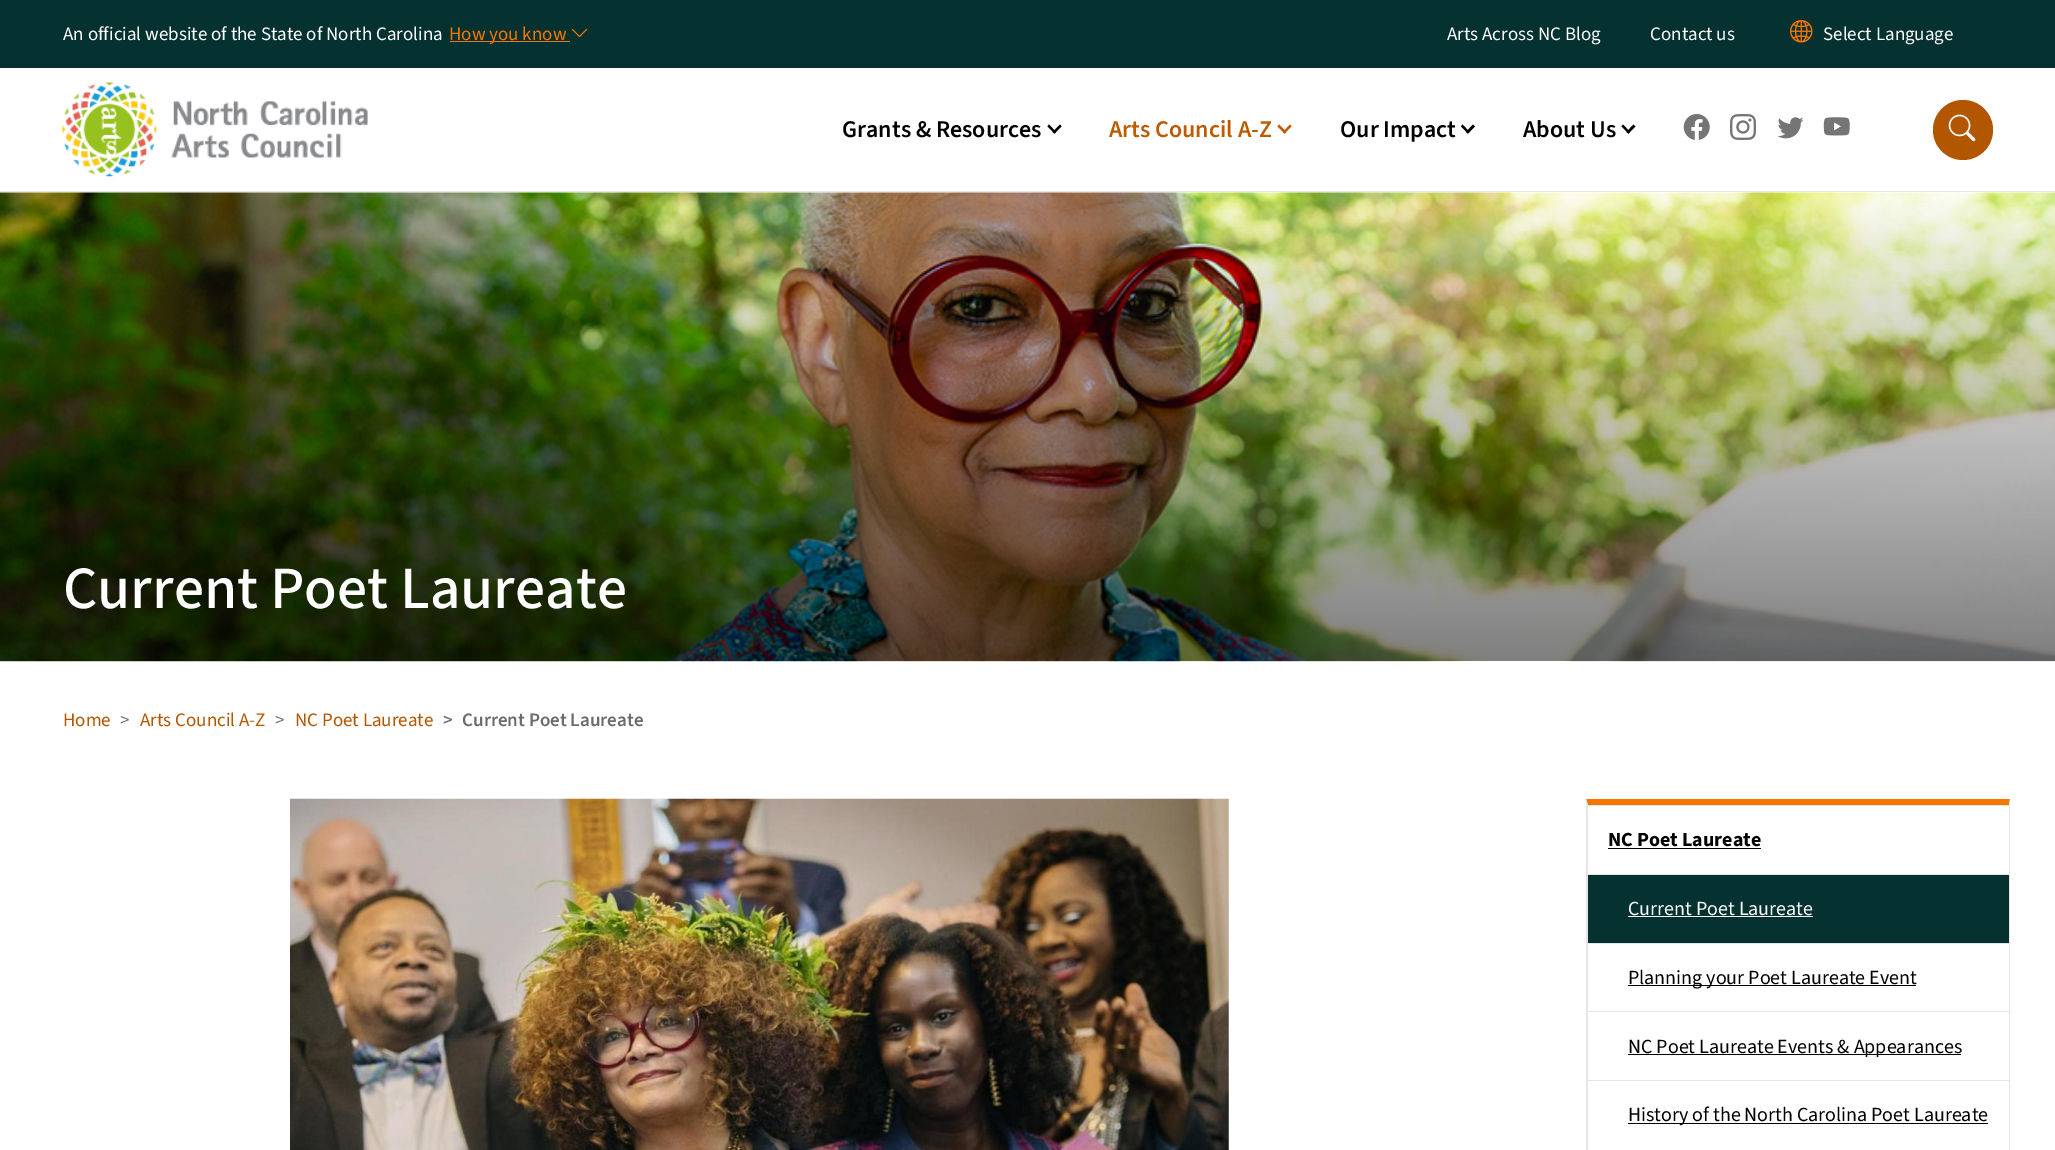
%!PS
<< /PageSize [2055 1150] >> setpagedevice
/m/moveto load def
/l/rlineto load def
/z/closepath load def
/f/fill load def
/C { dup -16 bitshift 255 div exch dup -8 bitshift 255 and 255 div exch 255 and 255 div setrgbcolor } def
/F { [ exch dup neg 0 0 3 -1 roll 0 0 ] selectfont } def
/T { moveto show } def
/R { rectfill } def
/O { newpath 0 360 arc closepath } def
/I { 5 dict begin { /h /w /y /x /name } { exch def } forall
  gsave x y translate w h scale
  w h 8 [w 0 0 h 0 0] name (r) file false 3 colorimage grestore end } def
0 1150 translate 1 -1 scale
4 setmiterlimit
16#FFFFFF C
0 0 2055 1150 R
16#E5E5E5 C
0 191 2055 1 R
16#053131 C
0 0 2055 68 R
/SourceSans3-Regular 19 F
16#FFFFFF C
(An official website of the State of North Carolina) 63 40 T
16#F57600 C
450 41 120 1 R
(How you know) 449 40 T
(1.rgb) 571 28 17 10 I
16#FFFFFF C
(Arts Across NC Blog) 1447 40 T
(Contact us) 1650 40 T
(2.rgb) 1790 20 23 23 I
(Select Language) 1823 40 T
(3.rgb) 62 82 306 95 I
/SourceSans3-SemiBold 24 F
16#000000 C
(Grants & Resources) 842 137 T
1060 124.5 m 1.5 2 l -7 7 l -2 -1.5 l z f
1049 124.5 m 7 7.5 l -1.5 1.5 l -7 -7 l z f
16#BD5B00 C
(Arts Council A-Z) 1109 137 T
1290 124.5 m 1.5 2 l -7 7 l -1.5 -1.5 l z f
1279 124.5 m 7.5 7.5 l -2 1.5 l -7 -7 l z f
16#000000 C
(Our Impact) 1340 137 T
1473 124.5 m 2 2 l -7 7 l -2 -1.5 l z f
1462.5 124.5 m 7 7.5 l -1.5 1.5 l -7 -7 l z f
(About Us) 1523 137 T
1633.5 124.5 m 2 2 l -7 7 l -2 -1.5 l z f
1623 124.5 m 7 7.5 l -1.5 1.5 l -7 -7 l z f
(4.rgb) 1683 114 27 26 I
(5.rgb) 1730 114 26 26 I
(6.rgb) 1777 117 27 22 I
(7.rgb) 1823 117 27 19 I
16#B35600 C
1963 130 30 O f
(8.rgb) 1948 114 28 28 I
(9.rgb) 0 192 2055 470 I
/SourceSans3-Medium 60 F
16#FFFFFF C
(Current Poet Laureate) 63 608 T
/SourceSans3-Regular 19 F
16#B35600 C
(Home) 63 726 T
16#6C757D C
(>) 120 726 T
16#B35600 C
(Arts Council A-Z) 140 726 T
16#6C757D C
(>) 275 726 T
16#B35600 C
(NC Poet Laureate) 295 726 T
/SourceSans3-SemiBold 19 F
16#6C757D C
(>) 443 726 T
16#6B6B6B C
(Current Poet Laureate) 462 726 T
(10.rgb) 290 798 939 352 I
16#F57600 C
1586 799 m 424 0 l -1 6 l -421 0 l z f
16#E5E5E5 C
2010 799 m 0 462 l -1 -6 l 0 -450 l z f
1586 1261 m 0 -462 l 2 6 l 0 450 l z f
1588 805 421 1 R
/SourceSans3-Bold 20 F
16#000000 C
(NC Poet Laureate) 1608 846 T
1608 848 153 1 R
16#E5E5E5 C
1588 874 421 1 R
16#053131 C
1588 875 421 68 R
/SourceSans3-Regular 20 F
16#FFFFFF C
(Current Poet Laureate) 1628 915 T
1628 916 185 1 R
16#E5E5E5 C
1588 943 421 1 R
16#000000 C
1628 985 288 1 R
(Planning your Poet Laureate Event) 1628 984 T
16#E5E5E5 C
1588 1011 421 1 R
16#000000 C
1628 1054 333 1 R
(NC Poet Laureate Events & Appearances) 1628 1053 T
16#E5E5E5 C
1588 1080 421 1 R
16#000000 C
1628 1123 360 1 R
(History of the North Carolina Poet Laureate) 1628 1121 T
showpage
